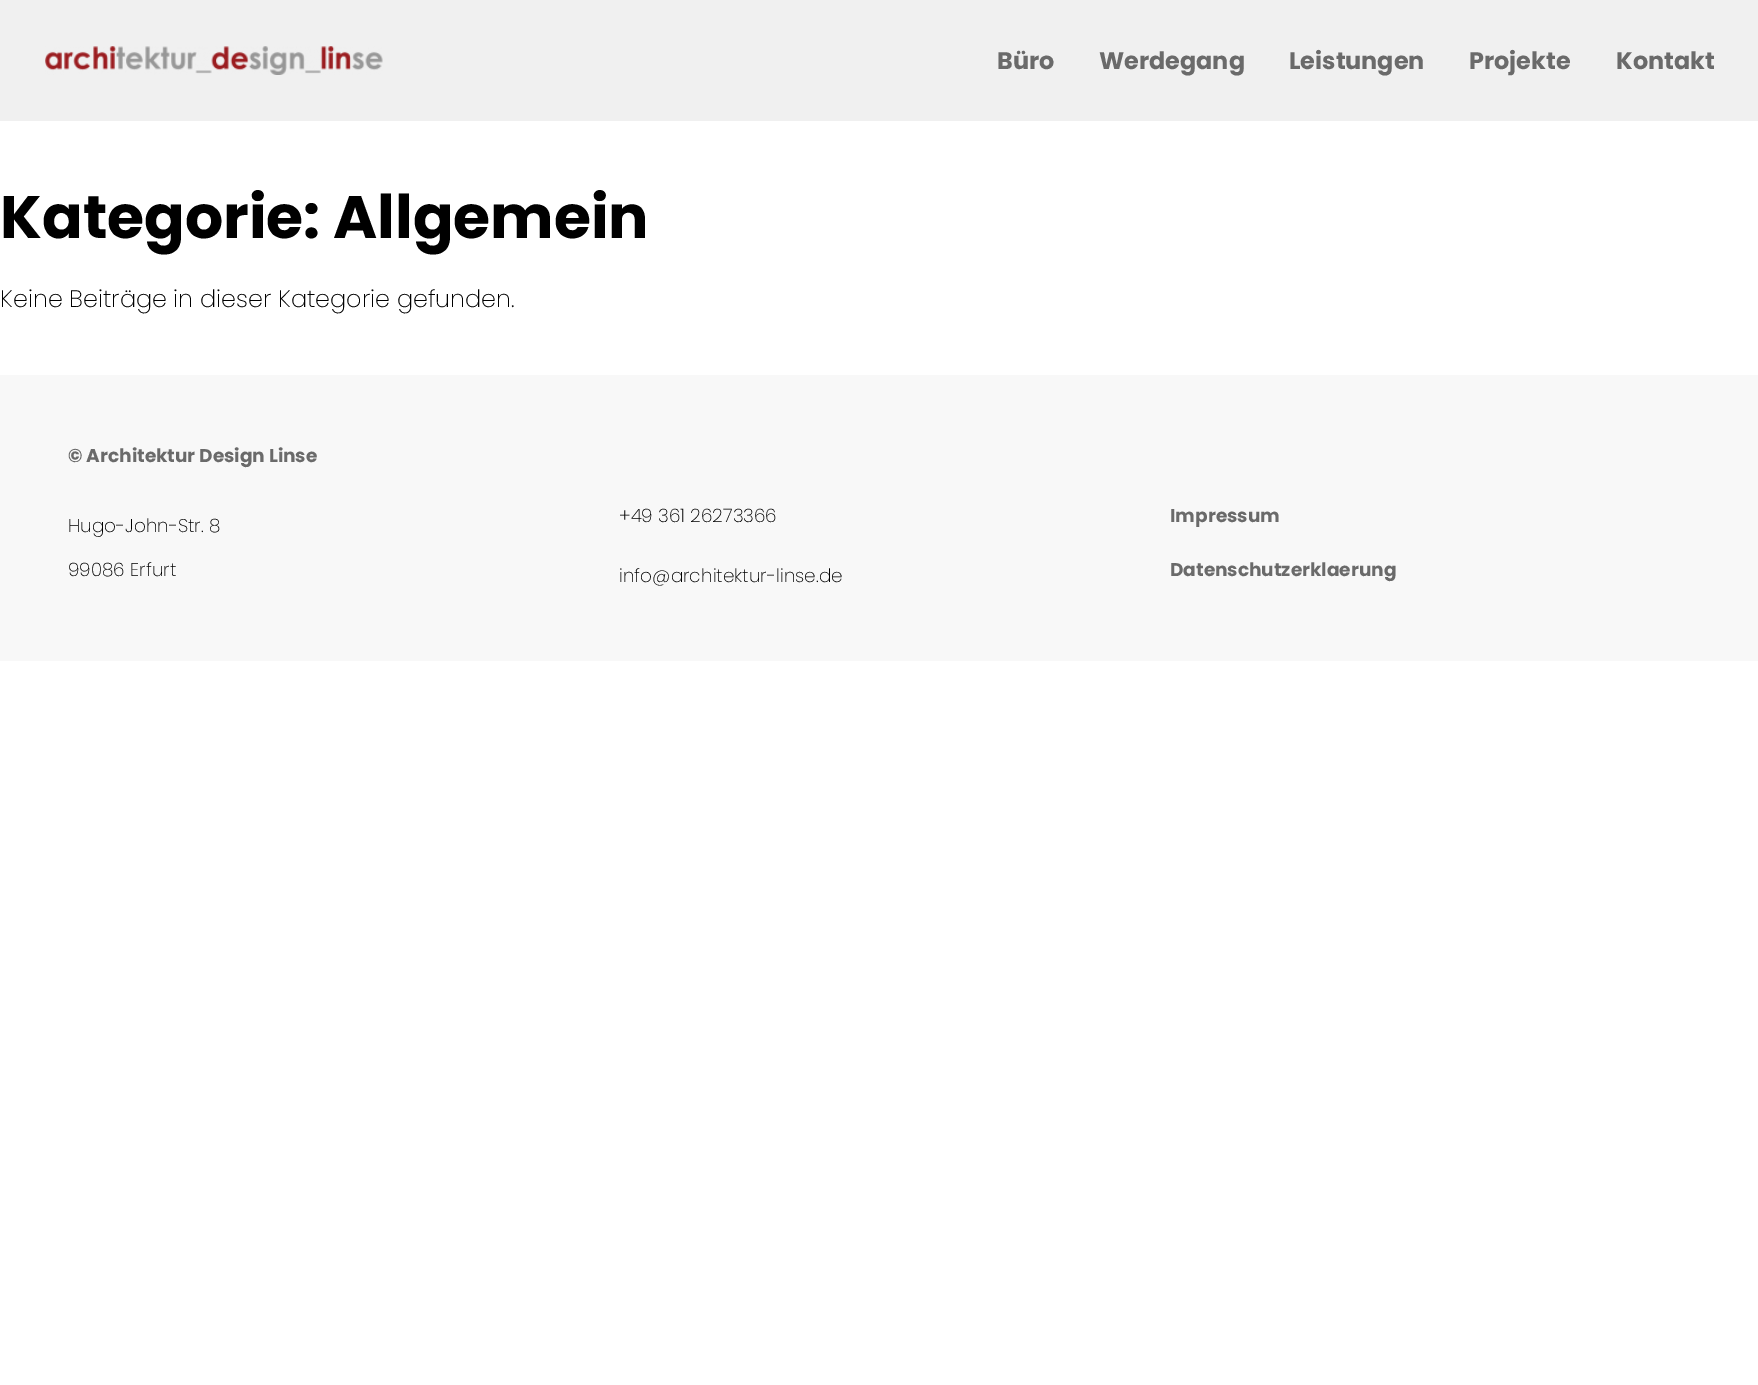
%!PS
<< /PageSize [1758 1385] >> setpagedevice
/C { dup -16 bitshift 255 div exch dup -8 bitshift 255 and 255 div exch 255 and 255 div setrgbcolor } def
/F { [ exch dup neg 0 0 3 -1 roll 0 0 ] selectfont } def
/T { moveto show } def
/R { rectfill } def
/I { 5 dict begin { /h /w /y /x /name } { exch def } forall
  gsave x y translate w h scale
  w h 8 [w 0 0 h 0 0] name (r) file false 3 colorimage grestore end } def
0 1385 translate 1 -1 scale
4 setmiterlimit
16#FFFFFF C
0 0 1758 1385 R
16#F0F0F0 C
0 0 1758 121 R
(1.rgb) 45 46 338 29 I
/Poppins-Bold 23.9 F
16#6A6A6A C
(Büro) 997 69 T
(Werdegang) 1099 69 T
(Leistungen) 1289 69 T
(Projekte) 1469 69 T
(Kontakt) 1616 69 T
/Poppins-Bold 60 F
16#000000 C
(Kategorie: Allgemein) 0 238 T
/Poppins-ExtraLight 23.9 F
(Keine Beiträge in dieser Kategorie gefunden.) 0 307 T
16#F8F8F8 C
0 375 1758 286 R
/Poppins-Bold 18.5 F
16#6A6A6A C
(© Architektur Design Linse) 68 462 T
/Poppins-ExtraLight 18.5 F
16#000000 C
(Hugo-John-Str. 8) 68 532 T
(99086 Erfurt) 68 576 T
(+49 361 26273366) 619 522 T
(info@architektur-linse.de) 619 582 T
/Poppins-Bold 18.5 F
16#6A6A6A C
(Impressum) 1170 522 T
(Datenschutzerklaerung) 1170 576 T
showpage
